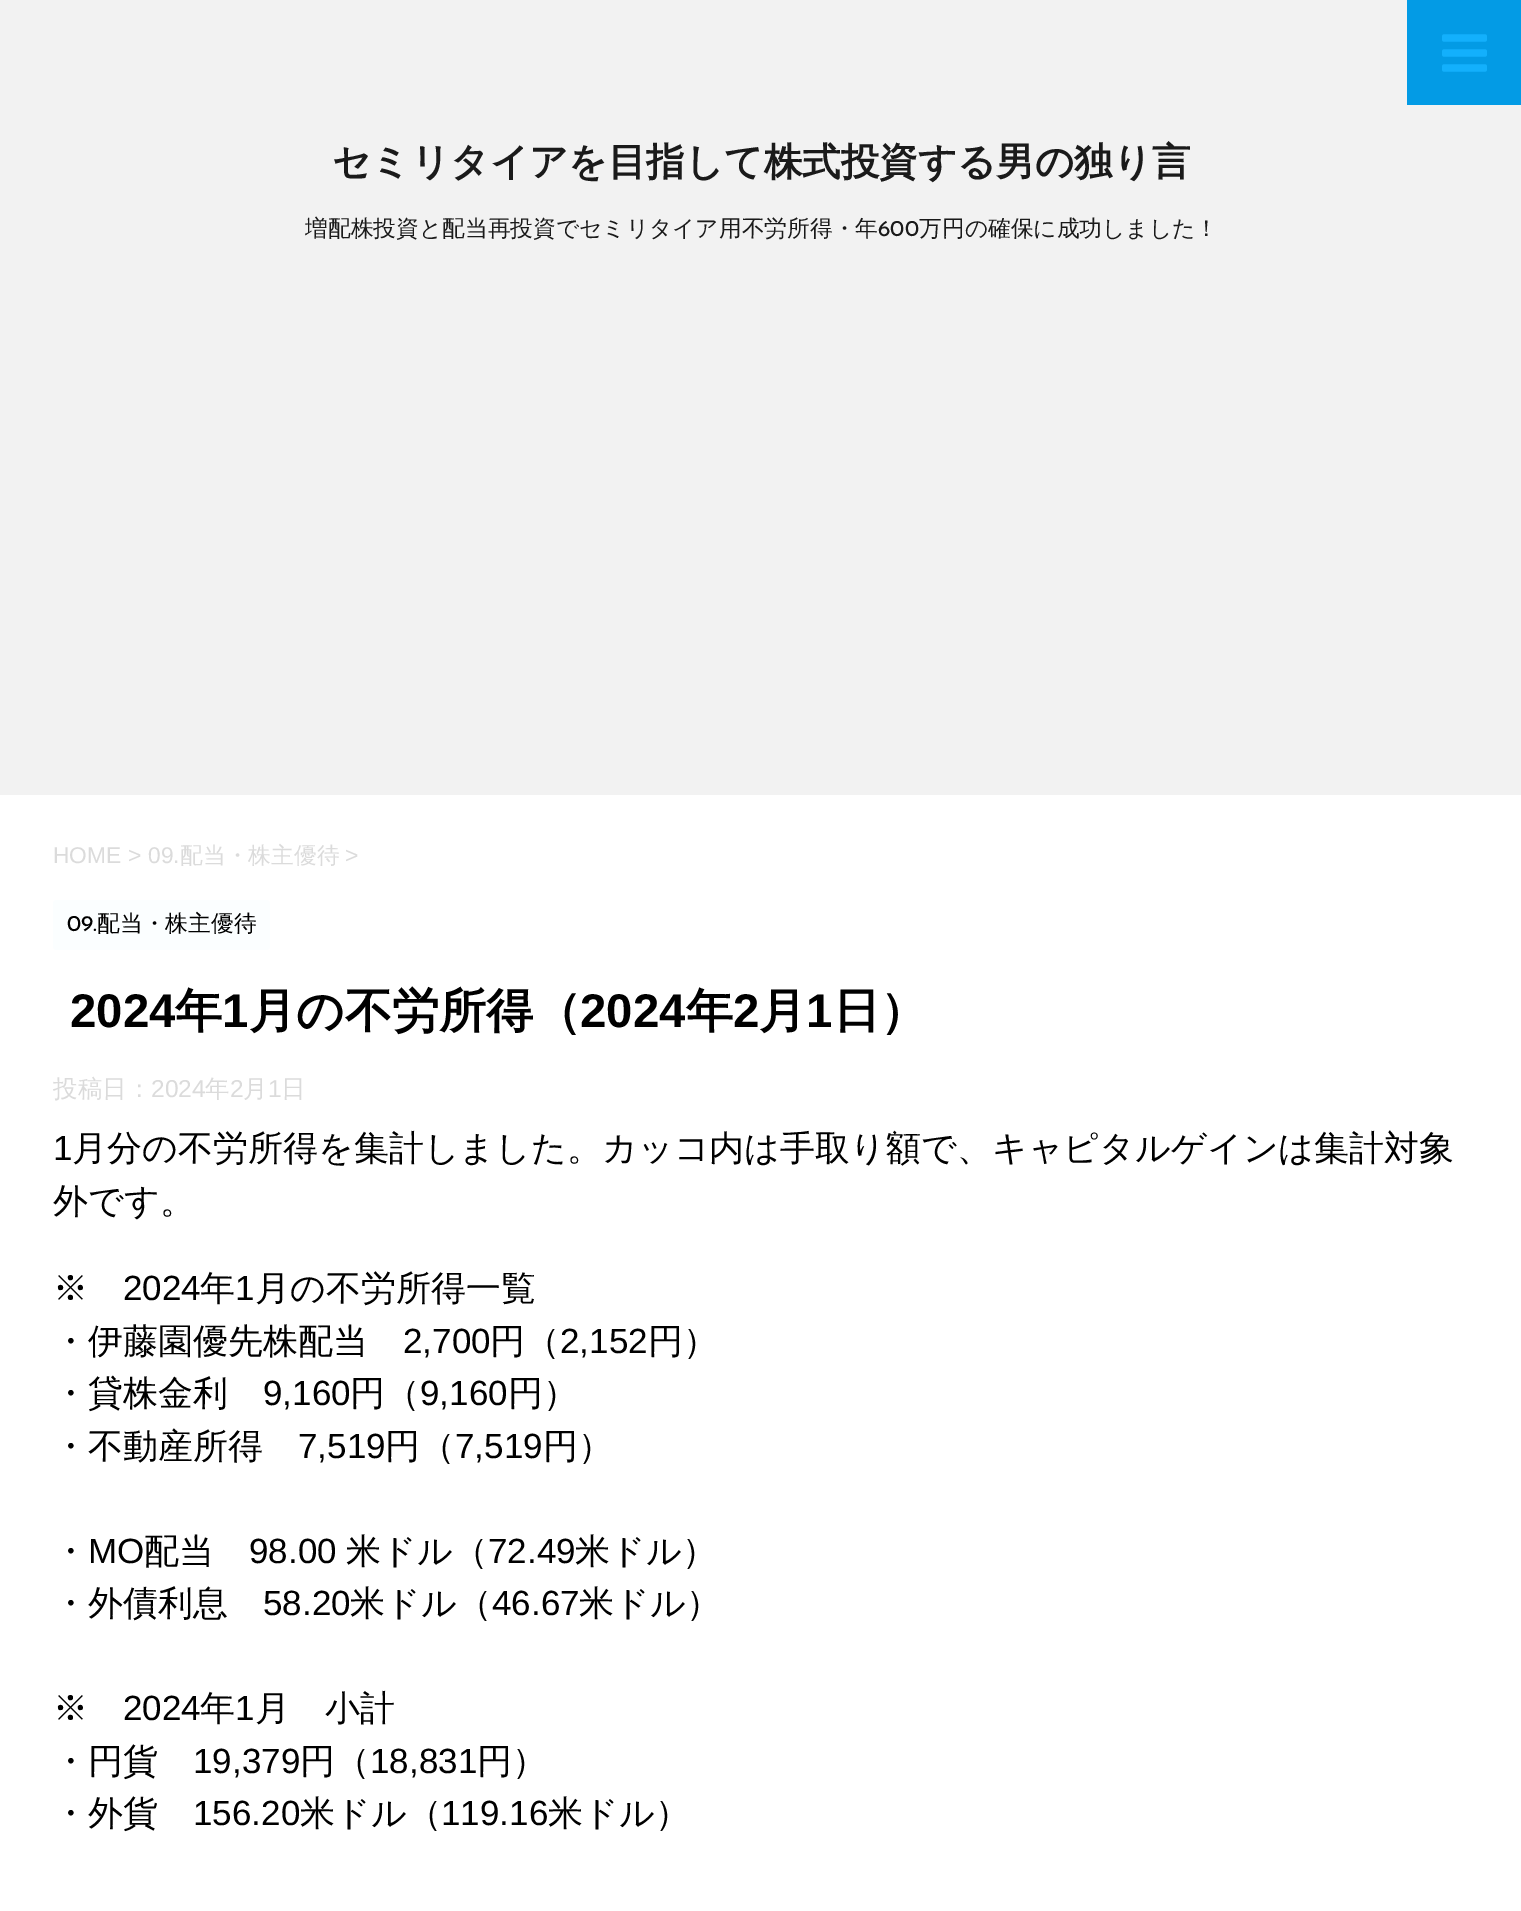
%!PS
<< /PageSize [1521 1911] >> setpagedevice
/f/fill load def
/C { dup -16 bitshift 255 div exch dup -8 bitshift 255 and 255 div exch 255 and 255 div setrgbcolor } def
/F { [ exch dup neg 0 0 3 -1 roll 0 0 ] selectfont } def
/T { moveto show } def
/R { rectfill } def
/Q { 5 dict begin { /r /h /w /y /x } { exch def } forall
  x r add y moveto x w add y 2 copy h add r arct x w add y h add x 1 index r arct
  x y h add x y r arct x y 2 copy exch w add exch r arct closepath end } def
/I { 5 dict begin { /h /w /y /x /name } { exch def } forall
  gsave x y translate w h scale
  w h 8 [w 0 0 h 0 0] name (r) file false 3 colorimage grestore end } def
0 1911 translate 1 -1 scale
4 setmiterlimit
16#F2F2F2 C
0 0 1521 1911 R
16#039BE5 C
1407 0 114 105 R
(1.rgb) 1442 34 45 38 I
/WenQuanYiZenHei-Bold 38.5 F
16#1A1A1A C
(セミリタイアを目指して株式投資する男の独り言) 332 175 T
/WenQuanYiZenHei-Medium 22.75 F
(増配株投資と配当再投資でセミリタイア用不労所得・年) 305 236 T
/JosefinSans-Regular 22.75 F
(600) 878 236 T
/WenQuanYiZenHei-Medium 22.75 F
(万円の確保に成功しました！) 919 236 T
16#FFFFFF C
0 795 1521 1116 R
/LiberationSans-Regular 22.75 F
16#DBDBDB C
(HOME >) 53 863 T
(09.) 148 863 T
/WenQuanYiZenHei-Medium 22.75 F
(配当・株主優待) 180 863 T
/LiberationSans-Regular 22.75 F
(>) 345 863 T
16#FBFEFF C
53 900 217 50 4 Q f
/JosefinSans-Regular 22.75 F
16#000000 C
(09.) 67 931 T
/WenQuanYiZenHei-Medium 22.75 F
(配当・株主優待) 97 931 T
/LiberationSans-Bold 47.25 F
(2024) 70 1027 T
/WenQuanYiZenHei-Bold 47.25 F
(年) 175 1027 T
/LiberationSans-Bold 47.25 F
(1) 222 1027 T
/WenQuanYiZenHei-Bold 47.25 F
(月の不労所得（) 249 1027 T
/LiberationSans-Bold 47.25 F
(2024) 580 1027 T
/WenQuanYiZenHei-Bold 47.25 F
(年) 686 1027 T
/LiberationSans-Bold 47.25 F
(2) 733 1027 T
/WenQuanYiZenHei-Bold 47.25 F
(月) 759 1027 T
/LiberationSans-Bold 47.25 F
(1) 806 1027 T
/WenQuanYiZenHei-Bold 47.25 F
(日）) 833 1027 T
/WenQuanYiZenHei-Medium 24.5 F
16#DBDBDB C
(投稿日：) 53 1097 T
/LiberationSans-Regular 24.5 F
(2024) 151 1097 T
/WenQuanYiZenHei-Medium 24.5 F
(年) 205 1097 T
/LiberationSans-Regular 24.5 F
(2) 230 1097 T
/WenQuanYiZenHei-Medium 24.5 F
(月) 243 1097 T
/LiberationSans-Regular 24.5 F
(1) 268 1097 T
/WenQuanYiZenHei-Medium 24.5 F
(日) 281 1097 T
/LiberationSans-Regular 35 F
16#000000 C
(1) 53 1160 T
/WenQuanYiZenHei-Medium 35 F
(月分の不労所得を集計しました。カッコ内は手取り額で、キャピタルゲインは集計対象) 72 1160 T
(外です。) 53 1213 T
(※) 53 1300 T
/LiberationSans-Regular 35 F
(2024) 123 1300 T
/WenQuanYiZenHei-Medium 35 F
(年) 200 1300 T
/LiberationSans-Regular 35 F
(1) 235 1300 T
/WenQuanYiZenHei-Medium 35 F
(月の不労所得一覧) 255 1300 T
(・伊藤園優先株配当) 53 1353 T
/LiberationSans-Regular 35 F
(2,700) 403 1353 T
/WenQuanYiZenHei-Medium 35 F
(円（) 490 1353 T
/LiberationSans-Regular 35 F
(2,152) 560 1353 T
/WenQuanYiZenHei-Medium 35 F
(円）) 648 1353 T
(・貸株金利) 53 1405 T
/LiberationSans-Regular 35 F
(9,160) 263 1405 T
/WenQuanYiZenHei-Medium 35 F
(円（) 350 1405 T
/LiberationSans-Regular 35 F
(9,160) 420 1405 T
/WenQuanYiZenHei-Medium 35 F
(円）) 508 1405 T
(・不動産所得) 53 1458 T
/LiberationSans-Regular 35 F
(7,519) 298 1458 T
/WenQuanYiZenHei-Medium 35 F
(円（) 385 1458 T
/LiberationSans-Regular 35 F
(7,519) 455 1458 T
/WenQuanYiZenHei-Medium 35 F
(円）) 543 1458 T
(・) 53 1563 T
/LiberationSans-Regular 35 F
(MO) 88 1563 T
/WenQuanYiZenHei-Medium 35 F
(配当) 144 1563 T
/LiberationSans-Regular 35 F
(98.00) 249 1563 T
/WenQuanYiZenHei-Medium 35 F
(米ドル（) 346 1563 T
/LiberationSans-Regular 35 F
(72.49) 488 1563 T
/WenQuanYiZenHei-Medium 35 F
(米ドル）) 575 1563 T
(・外債利息) 53 1615 T
/LiberationSans-Regular 35 F
(58.20) 263 1615 T
/WenQuanYiZenHei-Medium 35 F
(米ドル（) 350 1615 T
/LiberationSans-Regular 35 F
(46.67) 492 1615 T
/WenQuanYiZenHei-Medium 35 F
(米ドル）) 579 1615 T
(※) 53 1720 T
/LiberationSans-Regular 35 F
(2024) 123 1720 T
/WenQuanYiZenHei-Medium 35 F
(年) 200 1720 T
/LiberationSans-Regular 35 F
(1) 235 1720 T
/WenQuanYiZenHei-Medium 35 F
(月　小計) 255 1720 T
(・円貨) 53 1773 T
/LiberationSans-Regular 35 F
(19,379) 193 1773 T
/WenQuanYiZenHei-Medium 35 F
(円（) 300 1773 T
/LiberationSans-Regular 35 F
(18,831) 370 1773 T
/WenQuanYiZenHei-Medium 35 F
(円）) 477 1773 T
(・外貨) 53 1825 T
/LiberationSans-Regular 35 F
(156.20) 193 1825 T
/WenQuanYiZenHei-Medium 35 F
(米ドル（) 300 1825 T
/LiberationSans-Regular 35 F
(119.16) 441 1825 T
/WenQuanYiZenHei-Medium 35 F
(米ドル）) 548 1825 T
showpage
